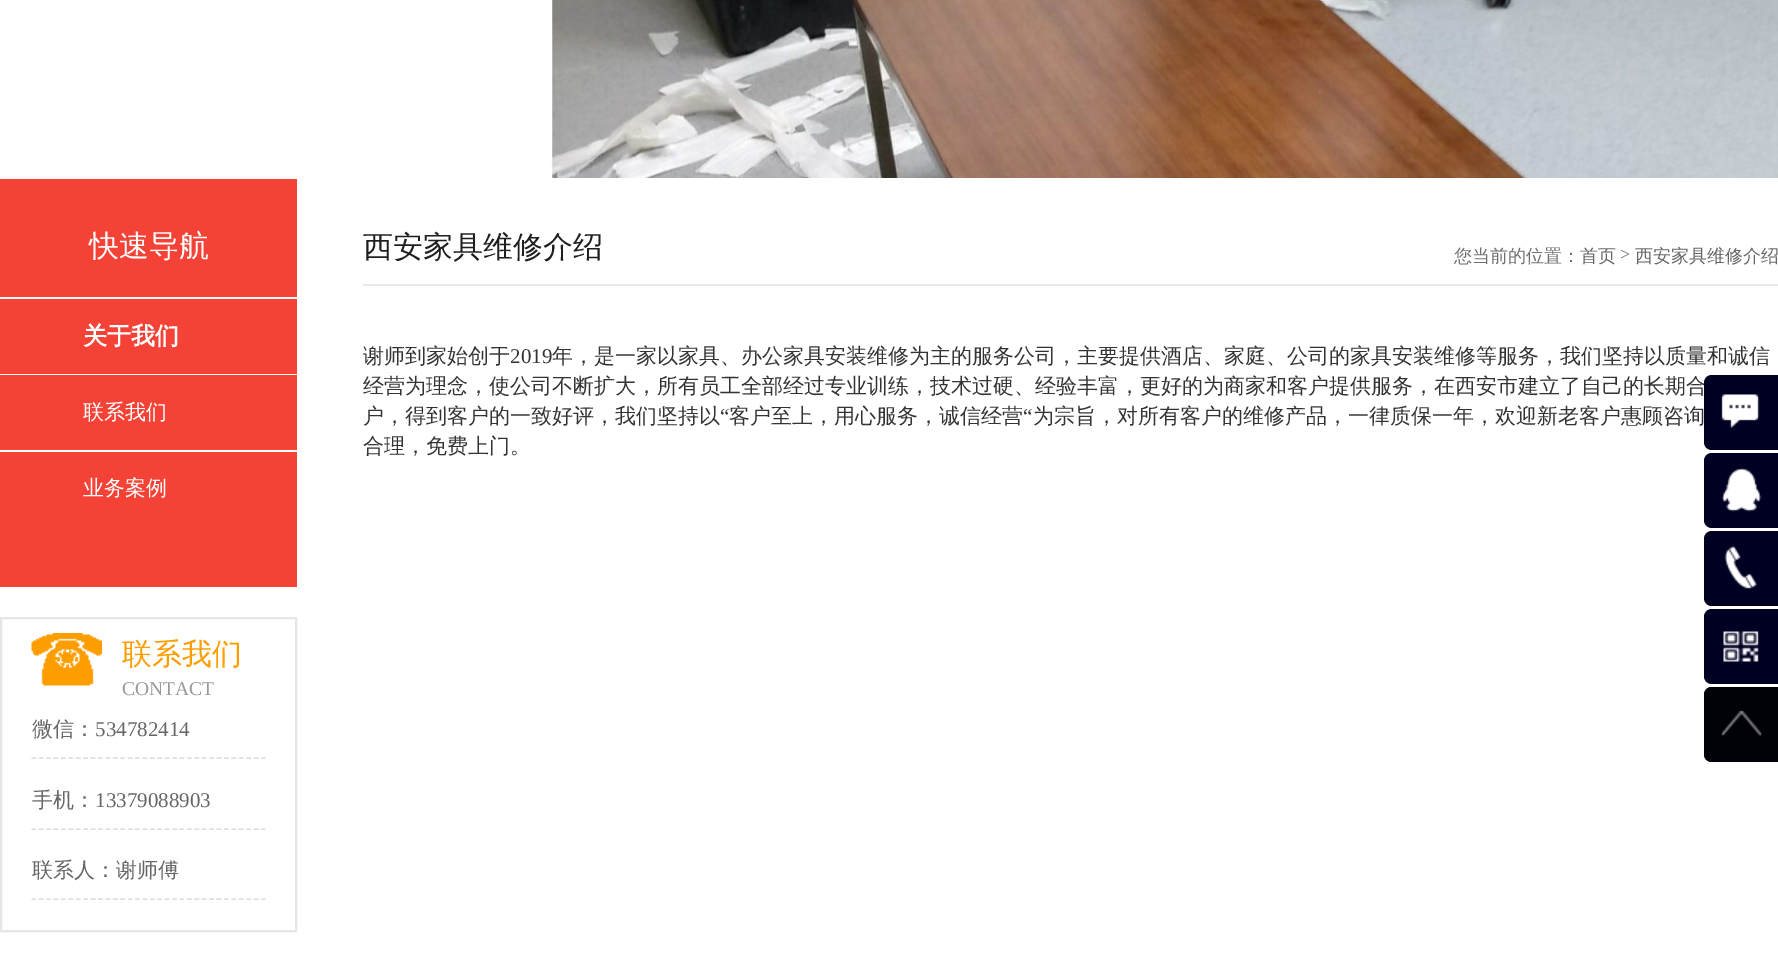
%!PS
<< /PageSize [1778 972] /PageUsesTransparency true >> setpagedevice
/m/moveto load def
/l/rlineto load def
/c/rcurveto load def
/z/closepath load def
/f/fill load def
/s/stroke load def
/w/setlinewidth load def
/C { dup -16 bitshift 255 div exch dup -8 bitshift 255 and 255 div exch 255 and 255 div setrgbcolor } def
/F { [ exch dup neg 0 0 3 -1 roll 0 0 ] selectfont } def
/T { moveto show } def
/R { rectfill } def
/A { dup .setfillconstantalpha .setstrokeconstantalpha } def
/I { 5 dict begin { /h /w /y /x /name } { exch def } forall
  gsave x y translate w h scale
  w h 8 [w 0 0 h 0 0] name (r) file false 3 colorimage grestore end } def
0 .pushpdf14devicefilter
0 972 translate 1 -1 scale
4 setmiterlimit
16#FFFFFF C
0 0 1778 972 R
(1.rgb) 551 0 1227 178 I
16#F44336 C
0 179 297 118 R
/WenQuanYiZenHei-Medium 30 F
16#FFFFFF C
(快速导航) 89 256 T
16#F44336 C
0 299 297 288 R
/WenQuanYiZenHei-Bold 24 F
16#FFFFFF C
(关于我们) 83 344 T
0 374 297 1 R
/WenQuanYiZenHei-Medium 21 F
(联系我们) 83 419 T
0 450 297 2 R
(业务案例) 83 495 T
16#E6E6E6 C
2 w
1 618 295 313 rectstroke
(2.rgb) 31 633 71 53 I
/WenQuanYiZenHei-Medium 30 F
16#FE9D00 C
(联系我们) 122 664 T
/LiberationSerif-Regular 19.5 F
16#999999 C
(CONTACT) 122 695 T
16#DFDFDF C
1.5 w
[4.5 2.91] 0 setdash
31.5 758 m 234 0 l s
/WenQuanYiZenHei-Medium 21 F
16#666666 C
(微信：) 32 736 T
/LiberationSerif-Regular 21 F
(534782414) 95 736 T
16#DFDFDF C
31.5 829 m 234 0 l s
/WenQuanYiZenHei-Medium 21 F
16#666666 C
(手机：) 32 807 T
/LiberationSerif-Regular 21 F
(13379088903) 95 807 T
16#DFDFDF C
31.5 899 m 234 0 l s
/WenQuanYiZenHei-Medium 21 F
16#666666 C
(联系人：谢师傅) 32 877 T
16#EAEAEA C
363 284 1415 2 R
/WenQuanYiZenHei-Medium 30 F
16#1F1F1F C
(西安家具维修介绍) 363 257 T
/WenQuanYiZenHei-Medium 18 F
16#6E6E6E C
(您当前的位置：) 1454 262 T
16#666666 C
(首页) 1580 262 T
/LiberationSerif-Regular 18 F
16#6E6E6E C
(>) 1620 260 T
/WenQuanYiZenHei-Medium 18 F
16#666666 C
(西安家具维修介绍) 1635 262 T
/WenQuanYiZenHei-Medium 21 F
16#333333 C
(谢师到家始创于) 363 363 T
/LiberationSerif-Regular 21 F
(2019) 510 363 T
/WenQuanYiZenHei-Medium 21 F
(年，是一家以家具、办公家具安装维修为主的服务公司，主要提供酒店、家庭、公司的家具安装维修等服务，我们坚持以质量和诚信) 552 363 T
(经营为理念，使公司不断扩大，所有员工全部经过专业训练，技术过硬、经验丰富，更好的为商家和客户提供服务，在西安市建立了自己的长期合) 363 393 T
(户，得到客户的一致好评，我们坚持以) 363 423 T
/LiberationSerif-Regular 21 F
(“) 720 423 T
/WenQuanYiZenHei-Medium 21 F
(客户至上，用心服务，诚信经营) 729 423 T
/LiberationSerif-Regular 21 F
(“) 1023 423 T
/WenQuanYiZenHei-Medium 21 F
(为宗旨，对所有客户的维修产品，一律质保一年，欢迎新老客户惠顾咨询) 1033 423 T
(合理，免费上门。) 363 453 T
16#000022 C
1712 375 m 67 0 l 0 75 l -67 0 l -4.5 0 -8 -3.5 -8 -8 c 0 -59 l 0 -4.5 3.5 -8 8 -8 c z f
(3.rgb) 1721 394 39 34 I
1712 453 m 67 0 l 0 75 l -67 0 l -4.5 0 -8 -3.5 -8 -8 c 0 -59 l 0 -4.5 3.5 -8 8 -8 c z f
(4.rgb) 1721 468 41 44 I
1712 531 m 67 0 l 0 75 l -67 0 l -4.5 0 -8 -3.5 -8 -8 c 0 -59 l 0 -4.5 3.5 -8 8 -8 c z f
(5.rgb) 1724 545 33 44 I
1712 609 m 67 0 l 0 75 l -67 0 l -4.5 0 -8 -3.5 -8 -8 c 0 -59 l 0 -4.5 3.5 -8 8 -8 c z f
(6.rgb) 1723 631 36 31 I
1712 687 m 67 0 l 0 75 l -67 0 l -4.5 0 -8 -3.5 -8 -8 c 0 -59 l 0 -4.5 3.5 -8 8 -8 c z f
0.8 A
16#000000 C
1712 687 m 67 0 l 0 75 l -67 0 l -4.5 0 -8 -3.5 -8 -8 c 0 -59 l 0 -4.5 3.5 -8 8 -8 c z f
1 A
(7.rgb) 1721 710 41 26 I
.poppdf14devicefilter showpage
